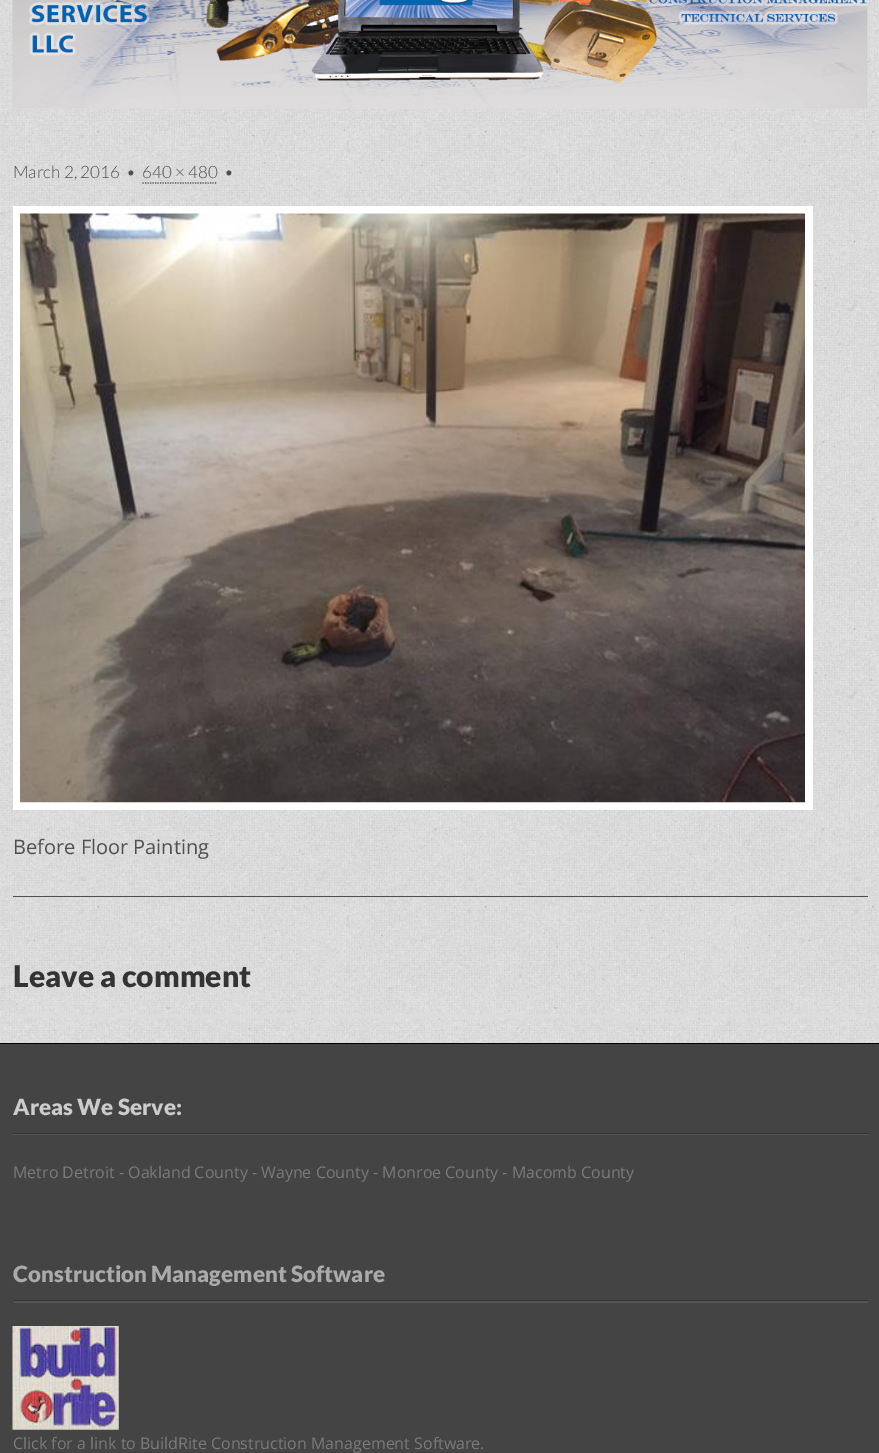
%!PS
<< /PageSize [879 1453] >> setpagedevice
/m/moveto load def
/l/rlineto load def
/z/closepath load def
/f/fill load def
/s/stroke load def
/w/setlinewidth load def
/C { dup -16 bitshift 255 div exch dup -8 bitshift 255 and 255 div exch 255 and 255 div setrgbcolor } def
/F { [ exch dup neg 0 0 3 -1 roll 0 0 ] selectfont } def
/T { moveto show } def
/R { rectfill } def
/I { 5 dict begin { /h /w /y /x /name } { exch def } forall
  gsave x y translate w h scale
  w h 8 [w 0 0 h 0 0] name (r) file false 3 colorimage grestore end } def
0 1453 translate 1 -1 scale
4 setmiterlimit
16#FFFFFF C
0 0 879 1453 R
(1.rgb) 0 0 879 1043 I
(2.rgb) 12 0 856 109 I
16#4F4F4F C
13 896 855 1 R
/Lato-Light 17 F
(March 2, 2016) 13 178 T
(•) 126 178 T
(640 × 480) 142 178 T
1.2 w
[1.25 1.25] 0 setdash
142.5 183 m 75 0 l s
(•) 224 178 T
16#FFFFFF C
13 206 800 604 R
(3.rgb) 20 213 785 590 I
/OpenSans-Regular 20 F
16#4F4F4F C
(Before Floor Painting) 13 854 T
/Lato-Black 30 F
16#333333 C
(Leave a comment) 13 987 T
16#DCDCDE C
13 1015 855 3 R
16#444444 C
0 1044 879 409 R
16#000000 C
0 1043 879 1 R
16#555555 C
13 1134 m 0 1 l 855 0 l 0 -52 l 0 51 l z f
16#333333 C
13 1133 855 1 R
/Lato-Black 22.4 F
16#CCCCCC C
(Areas We Serve:) 13 1115 T
/OpenSans-Regular 16 F
16#7B7B7B C
(Metro Detroit - Oakland County - Wayne County - Monroe County - Macomb County) 13 1178 T
16#555555 C
13 1301 m 0 2 l 855 0 l 0 -53 l 0 51 l z f
16#333333 C
13 1300 855 1 R
/Lato-Black 22.4 F
16#AAAAAA C
(Construction Management Software) 13 1282 T
(4.rgb) 12 1326 107 104 I
/OpenSans-Regular 16 F
16#7B7B7B C
(Click for a link to BuildRite Construction Management Software.) 13 1449 T
showpage
